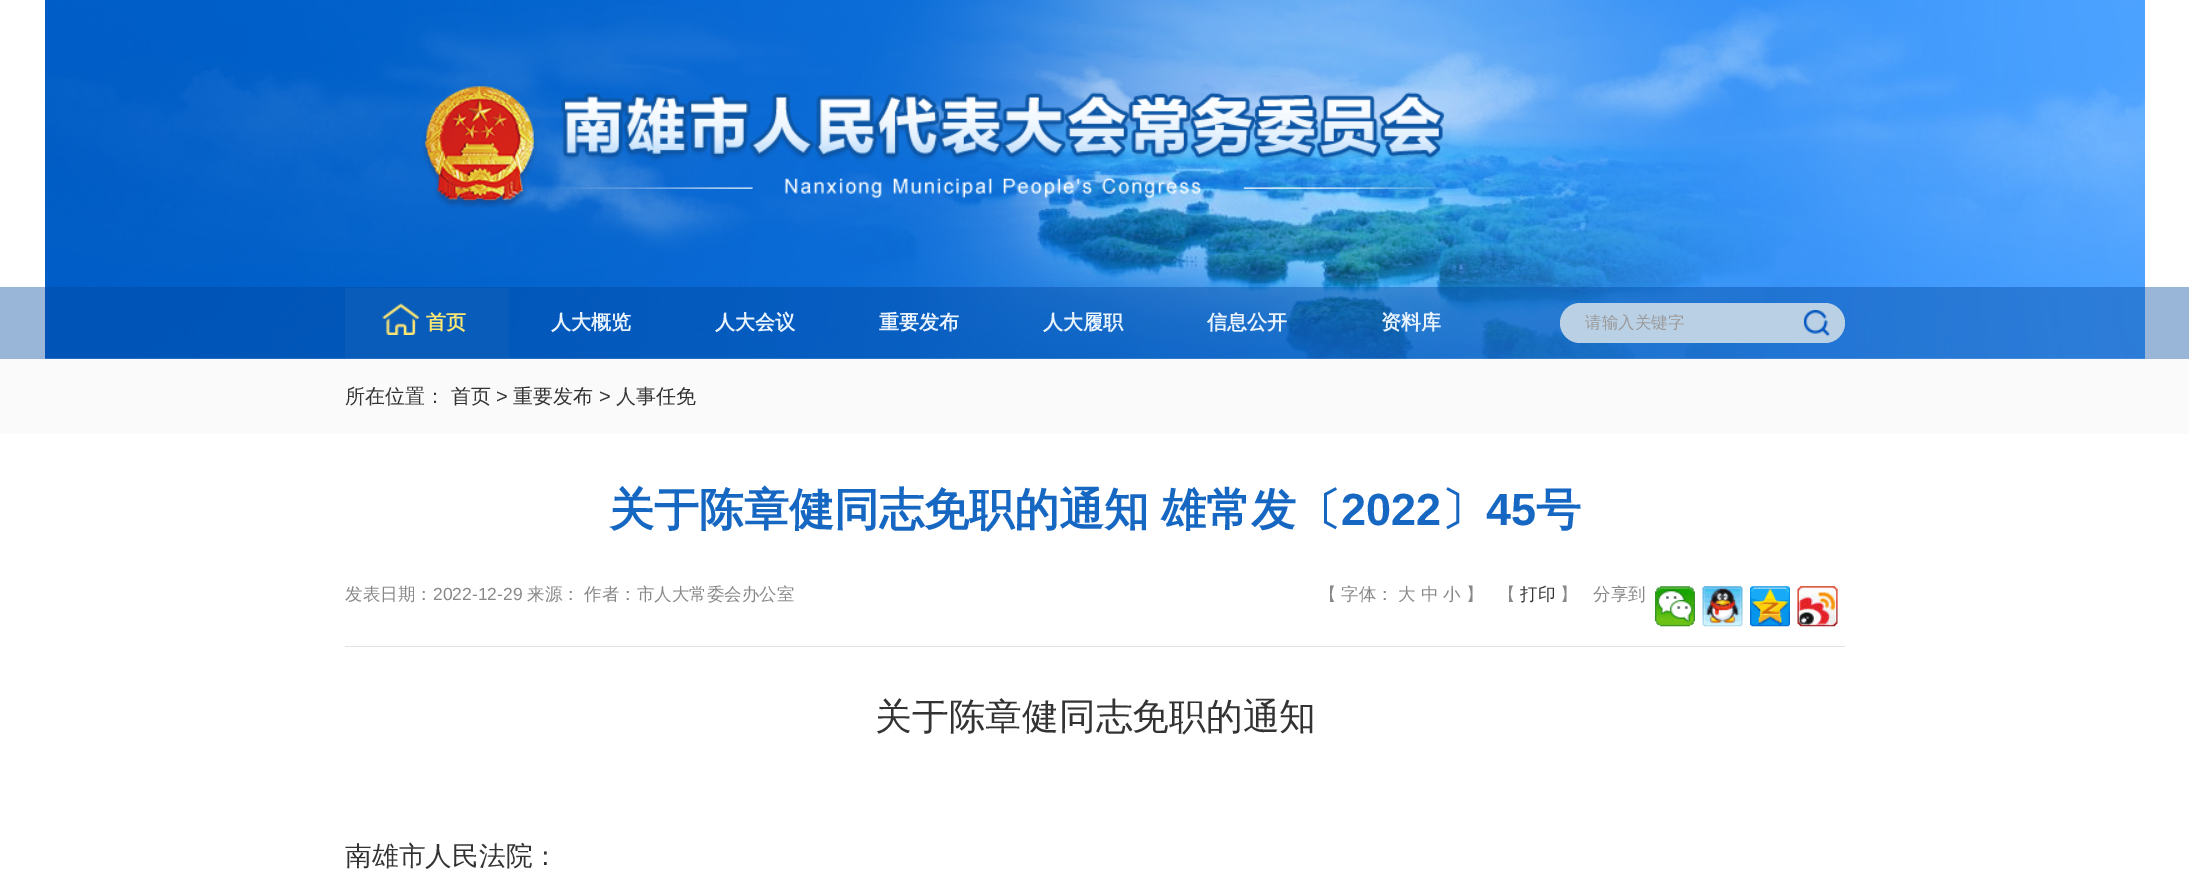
%!PS
<< /PageSize [2189 877] /PageUsesTransparency true >> setpagedevice
/m/moveto load def
/f/fill load def
/C { dup -16 bitshift 255 div exch dup -8 bitshift 255 and 255 div exch 255 and 255 div setrgbcolor } def
/F { [ exch dup neg 0 0 3 -1 roll 0 0 ] selectfont } def
/T { moveto show } def
/R { rectfill } def
/A { dup .setfillconstantalpha .setstrokeconstantalpha } def
/Q { 5 dict begin { /r /h /w /y /x } { exch def } forall
  x r add y moveto x w add y 2 copy h add r arct x w add y h add x 1 index r arct
  x y h add x y r arct x y 2 copy exch w add exch r arct closepath end } def
/I { 5 dict begin { /h /w /y /x /name } { exch def } forall
  gsave x y translate w h scale
  w h 8 [w 0 0 h 0 0] name (r) file false 3 colorimage grestore end } def
0 .pushpdf14devicefilter
0 877 translate 1 -1 scale
4 setmiterlimit
16#FFFFFF C
0 0 2189 877 R
(1.rgb) 45 0 2100 359 I
(2.rgb) 422 86 1023 122 I
0.4 A
16#00469E C
0 287 2189 72 R
1 A
16#095CBA C
345 288 164 70 R
(3.rgb) 382 303 37 32 I
/WenQuanYiZenHei-Bold 20 F
16#FDE871 C
(首页) 426 329 T
16#E9F3FD C
(人大概览) 551 329 T
(人大会议) 715 329 T
(重要发布) 879 329 T
(人大履职) 1043 329 T
(信息公开) 1207 329 T
(资料库) 1381 329 T
16#BAD0E5 C
1560 303 285 40 20 Q f
/WenQuanYiZenHei-Medium 16.5 F
16#999999 C
(请输入关键字) 1585 328 T
(4.rgb) 1803 310 27 27 I
16#FAFAFA C
0 359 2189 75 R
/WenQuanYiZenHei-Medium 20 F
16#333333 C
(所在位置：) 345 403 T
(首页) 451 403 T
/LiberationSans-Regular 20 F
(>) 496 403 T
/WenQuanYiZenHei-Medium 20 F
(重要发布) 513 403 T
/LiberationSans-Regular 20 F
(>) 599 403 T
/WenQuanYiZenHei-Medium 20 F
(人事任免) 616 403 T
/WenQuanYiZenHei-Bold 45 F
16#1667C2 C
609 525 m -1 0 32 (关于陈章健同志免职的通知 雄常发〔) widthshow
/LiberationSans-Bold 45 F
(2022) 1341 525 T
/WenQuanYiZenHei-Bold 45 F
(〕) 1441 525 T
/LiberationSans-Bold 45 F
(45) 1486 525 T
/WenQuanYiZenHei-Bold 45 F
(号) 1536 525 T
16#E1E1E1 C
345 646 1500 1 R
/WenQuanYiZenHei-Medium 17.5 F
16#888888 C
(发表日期：) 345 600 T
/LiberationSans-Regular 17.5 F
(2022-12-29) 433 600 T
/WenQuanYiZenHei-Medium 17.5 F
(来源：) 527 600 T
(作者：市人大常委会办公室) 584 600 T
(【) 1319 600 T
(字体：) 1341 600 T
(大) 1398 600 T
(中) 1421 600 T
(小) 1443 600 T
(】) 1466 600 T
(【) 1498 600 T
16#333333 C
(打印) 1520 600 T
16#888888 C
(】) 1560 600 T
(分享到) 1593 600 T
(5.rgb) 1655 586 40 41 I
(6.rgb) 1702 586 41 41 I
(7.rgb) 1750 586 40 41 I
(8.rgb) 1797 586 41 41 I
/WenQuanYiZenHei-Medium 36.75 F
16#333333 C
(关于陈章健同志免职的通知) 875 729 T
/WenQuanYiZenHei-Medium 26.75 F
(南雄市人民法院：) 345 865 T
.poppdf14devicefilter showpage
